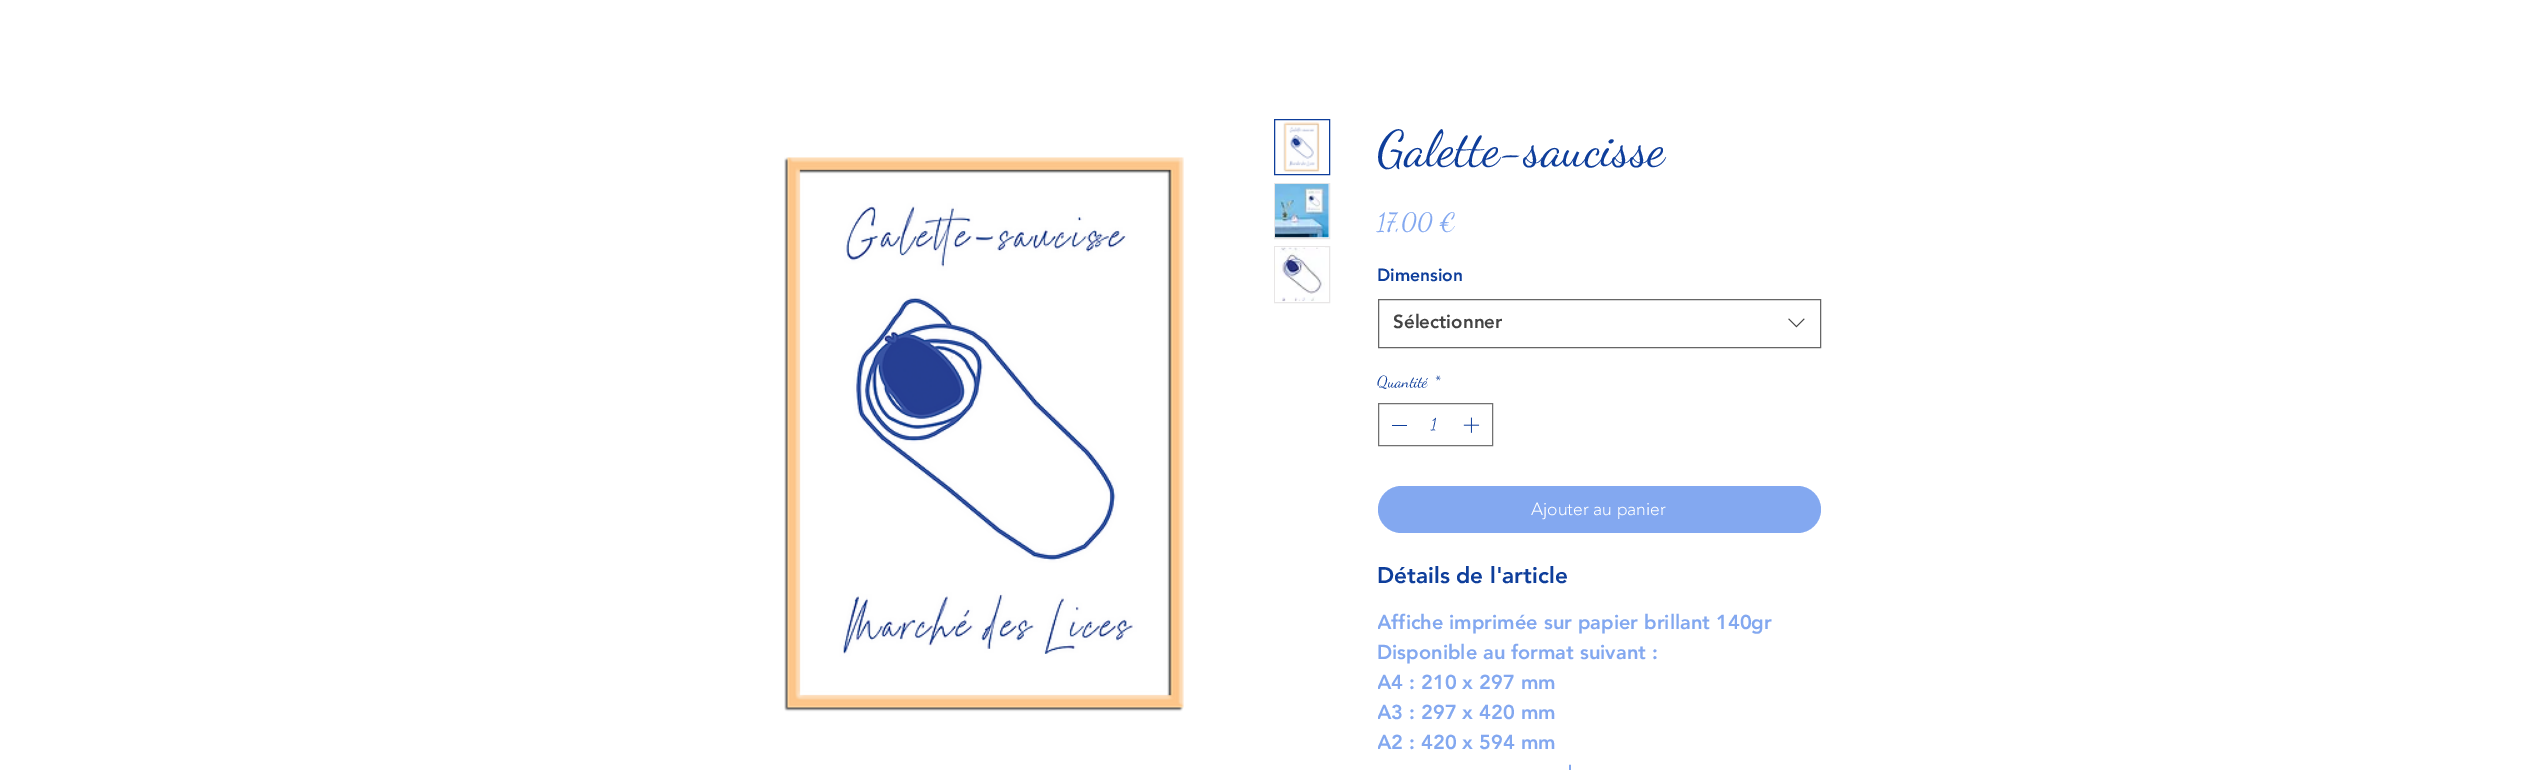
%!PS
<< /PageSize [2528 773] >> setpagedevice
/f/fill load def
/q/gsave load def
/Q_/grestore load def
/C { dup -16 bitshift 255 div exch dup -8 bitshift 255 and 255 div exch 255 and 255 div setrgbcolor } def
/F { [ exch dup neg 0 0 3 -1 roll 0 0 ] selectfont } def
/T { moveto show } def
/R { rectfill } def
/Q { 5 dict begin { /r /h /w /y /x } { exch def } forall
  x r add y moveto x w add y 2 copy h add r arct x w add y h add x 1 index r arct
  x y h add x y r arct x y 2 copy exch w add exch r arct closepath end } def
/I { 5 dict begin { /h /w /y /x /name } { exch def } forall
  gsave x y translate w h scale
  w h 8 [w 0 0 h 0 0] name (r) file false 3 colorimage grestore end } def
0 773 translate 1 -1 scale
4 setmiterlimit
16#FFFFFF C
0 0 2528 773 R
(1.rgb) 784 157 400 555 I
16#0E3E9B C
1274.5 119.5 55 55 rectstroke
(2.rgb) 1283 122 37 50 I
16#E8E6E6 C
1274.5 183.5 55 55 rectstroke
(3.rgb) 1275 183 54 55 I
1274.5 246.5 55 56 rectstroke
(4.rgb) 1275 247 50 55 I
/DancingScript-Regular 50 F
16#0E3E9B C
(Galette-saucisse) 1377 165 T
/DancingScript-Regular 25 F
16#83A8F0 C
(17,00 €) 1377 230 T
/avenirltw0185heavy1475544-Black 17.5 F
16#0E3E9B C
(Dimension) 1377 281 T
16#666666 C
1378.5 299.5 442 48 rectstroke
/avenirltw0185heavy1475544-Black 18.75 F
16#444444 C
(Sélectionner) 1393 328 T
(5.rgb) 1788 318 17 10 I
/DancingScript-Regular 16 F
16#0E3E9B C
(Quantité) 1377 387 T
(*) 1434 387 T
16#717171 C
1378.5 403.5 114 42 rectstroke
16#0E3E9B C
1392 425 15 1 R
(1) 1431 429 T
(6.rgb) 1463 417 17 16 I
16#83A8F0 C
1378 486 443 47 23.5 Q f
/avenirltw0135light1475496-Light 17.5 F
16#FFFFFF C
(Ajouter au panier) 1531 515 T
/avenirltw0185heavy1475544-Black 22.5 F
16#0E3E9B C
(Détails de l'article) 1377 583 T
q
1378 563 443 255 rectclip
/avenirltw0185heavy1475544-Black 20 F
16#83A8F0 C
(Affiche imprimée sur papier brillant 140gr) 1377 629 T
Q_
/avenirltw0185heavy1475544-Black 20 F
16#83A8F0 C
(Disponible au format suivant :) 1377 659 T
q
1378 563 443 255 rectclip
(A4 : 210 x 297 mm) 1377 689 T
(A3 : 297 x 420 mm) 1377 719 T
(A2 : 420 x 594 mm) 1377 749 T
Q_
(') 1567 779 T
showpage
